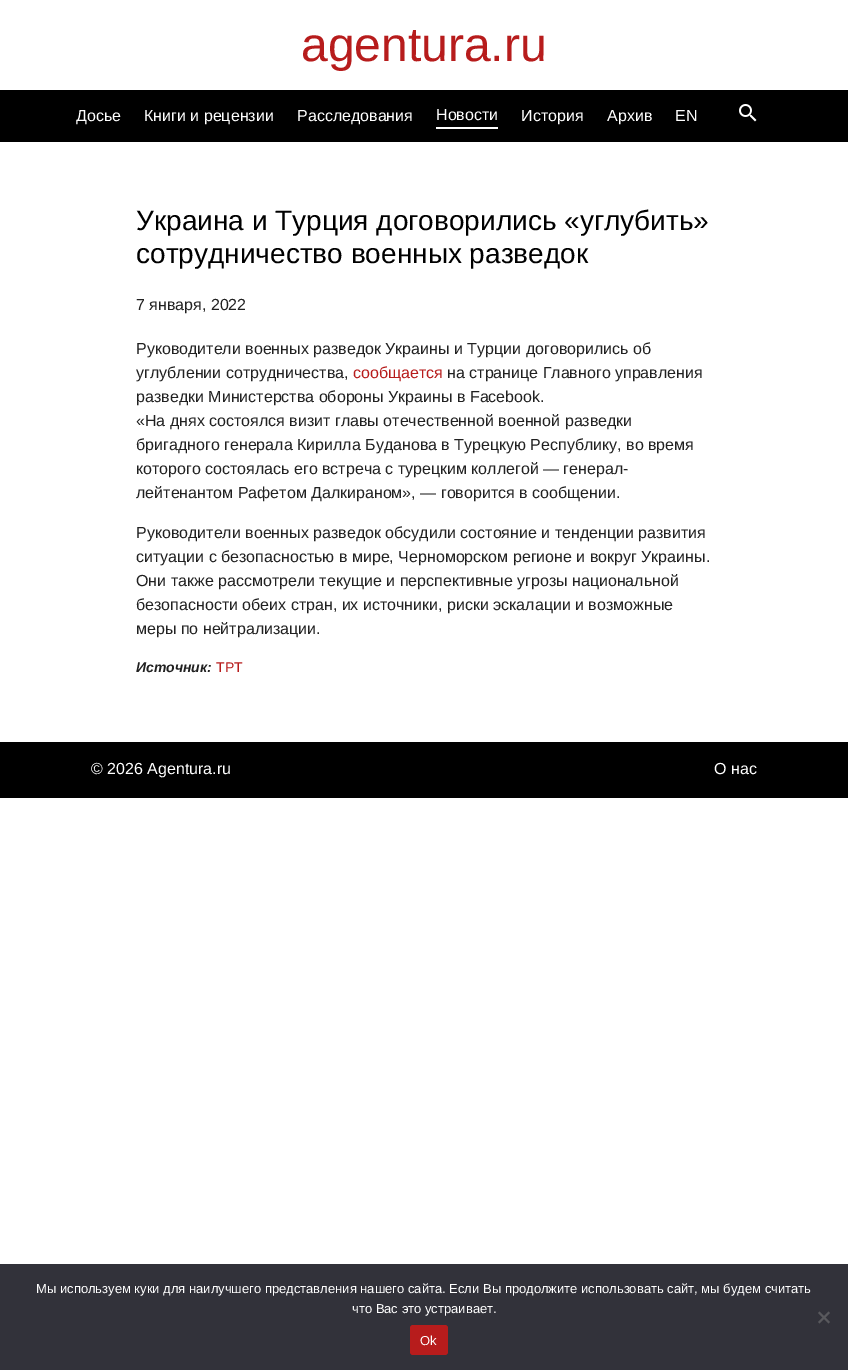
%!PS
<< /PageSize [848 1370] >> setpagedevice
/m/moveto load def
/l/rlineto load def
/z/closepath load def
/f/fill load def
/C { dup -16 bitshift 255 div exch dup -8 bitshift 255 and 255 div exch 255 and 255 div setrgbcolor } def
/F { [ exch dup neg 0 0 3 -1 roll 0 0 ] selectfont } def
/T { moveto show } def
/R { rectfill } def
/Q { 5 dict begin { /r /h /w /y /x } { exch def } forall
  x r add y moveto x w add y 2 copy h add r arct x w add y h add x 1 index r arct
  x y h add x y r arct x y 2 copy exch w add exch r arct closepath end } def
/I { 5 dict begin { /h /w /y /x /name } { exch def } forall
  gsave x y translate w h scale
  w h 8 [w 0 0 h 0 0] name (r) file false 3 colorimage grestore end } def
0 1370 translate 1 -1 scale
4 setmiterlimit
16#FFFFFF C
0 0 848 1370 R
/LiberationSans-Regular 48 F
16#B71C1C C
(agentura.ru) 301 61 T
16#000000 C
0 90 848 52 R
/LiberationSans-Regular 16 F
16#FFFFFF C
(Досье) 76 121 T
(Книги и рецензии) 144 121 T
(Расследования) 297 121 T
436 127 62 2 R
(Новости) 436 120 T
(История) 521 121 T
(Архив) 607 121 T
(EN) 675 121 T
(1.rgb) 739 104 18 18 I
/LiberationSans-Regular 28 F
16#000000 C
(Украина и Турция договорились «углубить») 136 230 T
(сотрудничество военных разведок) 136 263 T
/LiberationSans-Regular 16 F
16#212121 C
(7 января, 2022) 136 310 T
(Руководители военных разведок Украины и Турции договорились об) 136 354 T
(углублении сотрудничества,) 136 378 T
16#B71C1C C
(сообщается) 353 378 T
16#212121 C
(на странице Главного управления) 447 378 T
(разведки Министерства обороны Украины в Facebook.) 136 402 T
(«На днях состоялся визит главы отечественной военной разведки) 136 426 T
(бригадного генерала Кирилла Буданова в Турецкую Республику, во время) 136 450 T
(которого состоялась его встреча с турецким коллегой — генерал-) 136 474 T
(лейтенантом Рафетом Далкираном», — говорится в сообщении.) 136 498 T
(Руководители военных разведок обсудили состояние и тенденции развития) 136 538 T
(ситуации с безопасностью в мире, Черноморском регионе и вокруг Украины.) 136 562 T
(Они также рассмотрели текущие и перспективные угрозы национальной) 136 586 T
(безопасности обеих стран, их источники, риски эскалации и возможные) 136 610 T
(меры по нейтрализации.) 136 634 T
/LiberationSans-BoldItalic 14 F
(Источник:) 136 672 T
/LiberationSans-Regular 14 F
16#B71C1C C
(ТРТ) 216 672 T
16#000000 C
0 742 848 56 R
/LiberationSans-Regular 16 F
16#FFFFFF C
(© 2026 Agentura.ru) 91 774 T
(О нас) 714 774 T
16#32323A C
0 1264 848 106 R
/LiberationSans-Regular 13 F
16#FFFFFF C
(Мы используем куки для наилучшего представления нашего сайта. Если Вы продолжите использовать сайт, мы будем считать) 36 1293 T
(что Вас это устраивает.) 352 1313 T
16#59595D C
828.5 1311.5 m 1.5 1.5 l -10.5 10.5 l -1.5 -1.5 l z f
818 1313 m 1.5 -1.5 l 10.5 10.5 l -1.5 1.5 l z f
16#B71C1C C
410 1325 38 30 3 Q f
16#FFFFFF C
(Ok) 420 1345 T
showpage
